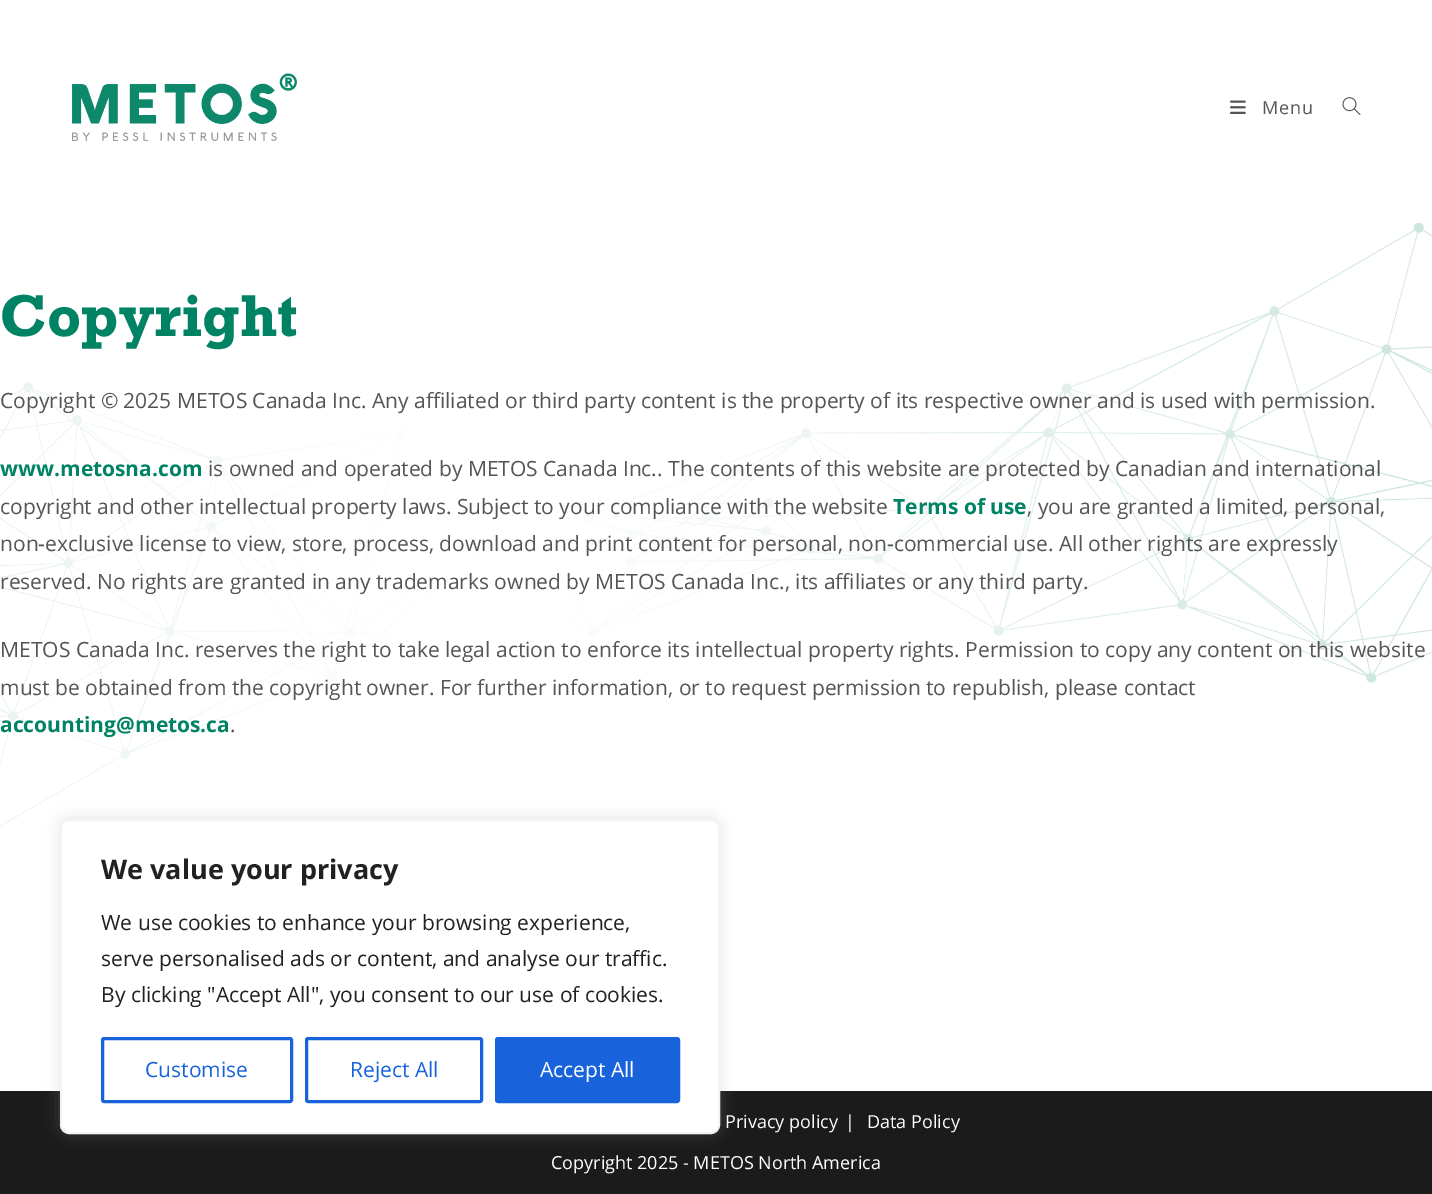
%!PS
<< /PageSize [1432 1194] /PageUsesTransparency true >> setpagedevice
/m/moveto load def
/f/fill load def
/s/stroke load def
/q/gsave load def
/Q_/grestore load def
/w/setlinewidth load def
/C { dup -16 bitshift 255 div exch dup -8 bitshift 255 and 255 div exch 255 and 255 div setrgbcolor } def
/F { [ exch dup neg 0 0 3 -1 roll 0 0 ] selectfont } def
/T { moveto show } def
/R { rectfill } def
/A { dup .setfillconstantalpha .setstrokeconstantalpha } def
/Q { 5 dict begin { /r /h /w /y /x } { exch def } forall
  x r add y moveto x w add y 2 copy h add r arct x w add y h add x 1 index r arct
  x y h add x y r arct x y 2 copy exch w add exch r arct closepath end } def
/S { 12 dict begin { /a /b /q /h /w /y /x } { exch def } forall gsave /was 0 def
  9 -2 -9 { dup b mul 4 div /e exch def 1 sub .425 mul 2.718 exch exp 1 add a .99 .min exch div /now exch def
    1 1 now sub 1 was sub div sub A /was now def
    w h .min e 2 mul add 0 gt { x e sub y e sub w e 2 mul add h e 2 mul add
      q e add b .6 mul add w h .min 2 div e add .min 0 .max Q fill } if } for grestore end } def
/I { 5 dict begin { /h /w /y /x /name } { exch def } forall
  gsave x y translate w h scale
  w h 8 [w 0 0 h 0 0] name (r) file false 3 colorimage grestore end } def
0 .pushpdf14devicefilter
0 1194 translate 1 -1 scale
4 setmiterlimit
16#FFFFFF C
0 0 1432 1194 R
(1.rgb) 72 73 225 68 I
(2.rgb) 1230 100 16 14 I
/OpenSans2-Regular 18 F
16#555555 C
1262 114 m 1 0 (Menu) ashow
(3.rgb) 1342 97 19 19 I
(4.rgb) 0 222 1432 605 I
/Rockwell-Bold 60 F
16#008364 C
(Copyright) 0 336 T
/OpenSans-Regular 21 F
16#555555 C
(Copyright © 2025 METOS Canada Inc. Any affiliated or third party content is the property of its respective owner and is used with permission.) 0 408 T
/OpenSans-Bold 21 F
16#008364 C
(www.metosna.com) 0 476 T
/OpenSans-Regular 21 F
16#555555 C
(is owned and operated by METOS Canada Inc.. The contents of this website are protected by Canadian and international) 208 476 T
(copyright and other intellectual property laws. Subject to your compliance with the website) 0 514 T
/OpenSans-Bold 21 F
16#008364 C
(Terms of use) 893 514 T
/OpenSans-Regular 21 F
16#555555 C
(, you are granted a limited, personal,) 1027 514 T
(non-exclusive license to view, store, process, download and print content for personal, non-commercial use. All other rights are expressly) 0 551 T
(reserved. No rights are granted in any trademarks owned by METOS Canada Inc., its affiliates or any third party.) 0 589 T
(METOS Canada Inc. reserves the right to take legal action to enforce its intellectual property rights. Permission to copy any content on this website) 0 657 T
(must be obtained from the copyright owner. For further information, or to request permission to republish, please contact) 0 695 T
/OpenSans-Bold 21 F
16#008364 C
(accounting@metos.ca) 0 732 T
/OpenSans-Regular 21 F
16#555555 C
(.) 230 732 T
16#1B1B1B C
0 1091 1432 103 R
/OpenSans-Regular 18 F
16#FFFFFF C
(Privacy policy) 725 1128 T
(|) 845 1128 T
(Data Policy) 867 1128 T
(Copyright 2025 - METOS North America) 551 1169 T
16#ACABAB C
60 818 660 315 9 7.5 .3 S
16#FFFFFF C
61 820 658 313 8 Q q f Q_
16#F4F4F4 C
2 w
s
/OpenSans-Bold 27 F
16#212121 C
(We value your privacy) 101 879 T
/OpenSans-Regular 21 F
(We use cookies to enhance your browsing experience,) 101 930 T
(serve personalised ads or content, and analyse our traffic.) 101 966 T
(By clicking "Accept All", you consent to our use of cookies.) 101 1002 T
16#1863DC C
3 w
102.5 1038.5 189 63 1.5 Q s
(Customise) 145 1077 T
306.5 1038.5 175 63 1.5 Q s
(Reject All) 350 1077 T
496.5 1038.5 182 63 1.5 Q q f Q_
s
16#FFFFFF C
(Accept All) 540 1077 T
.poppdf14devicefilter showpage
